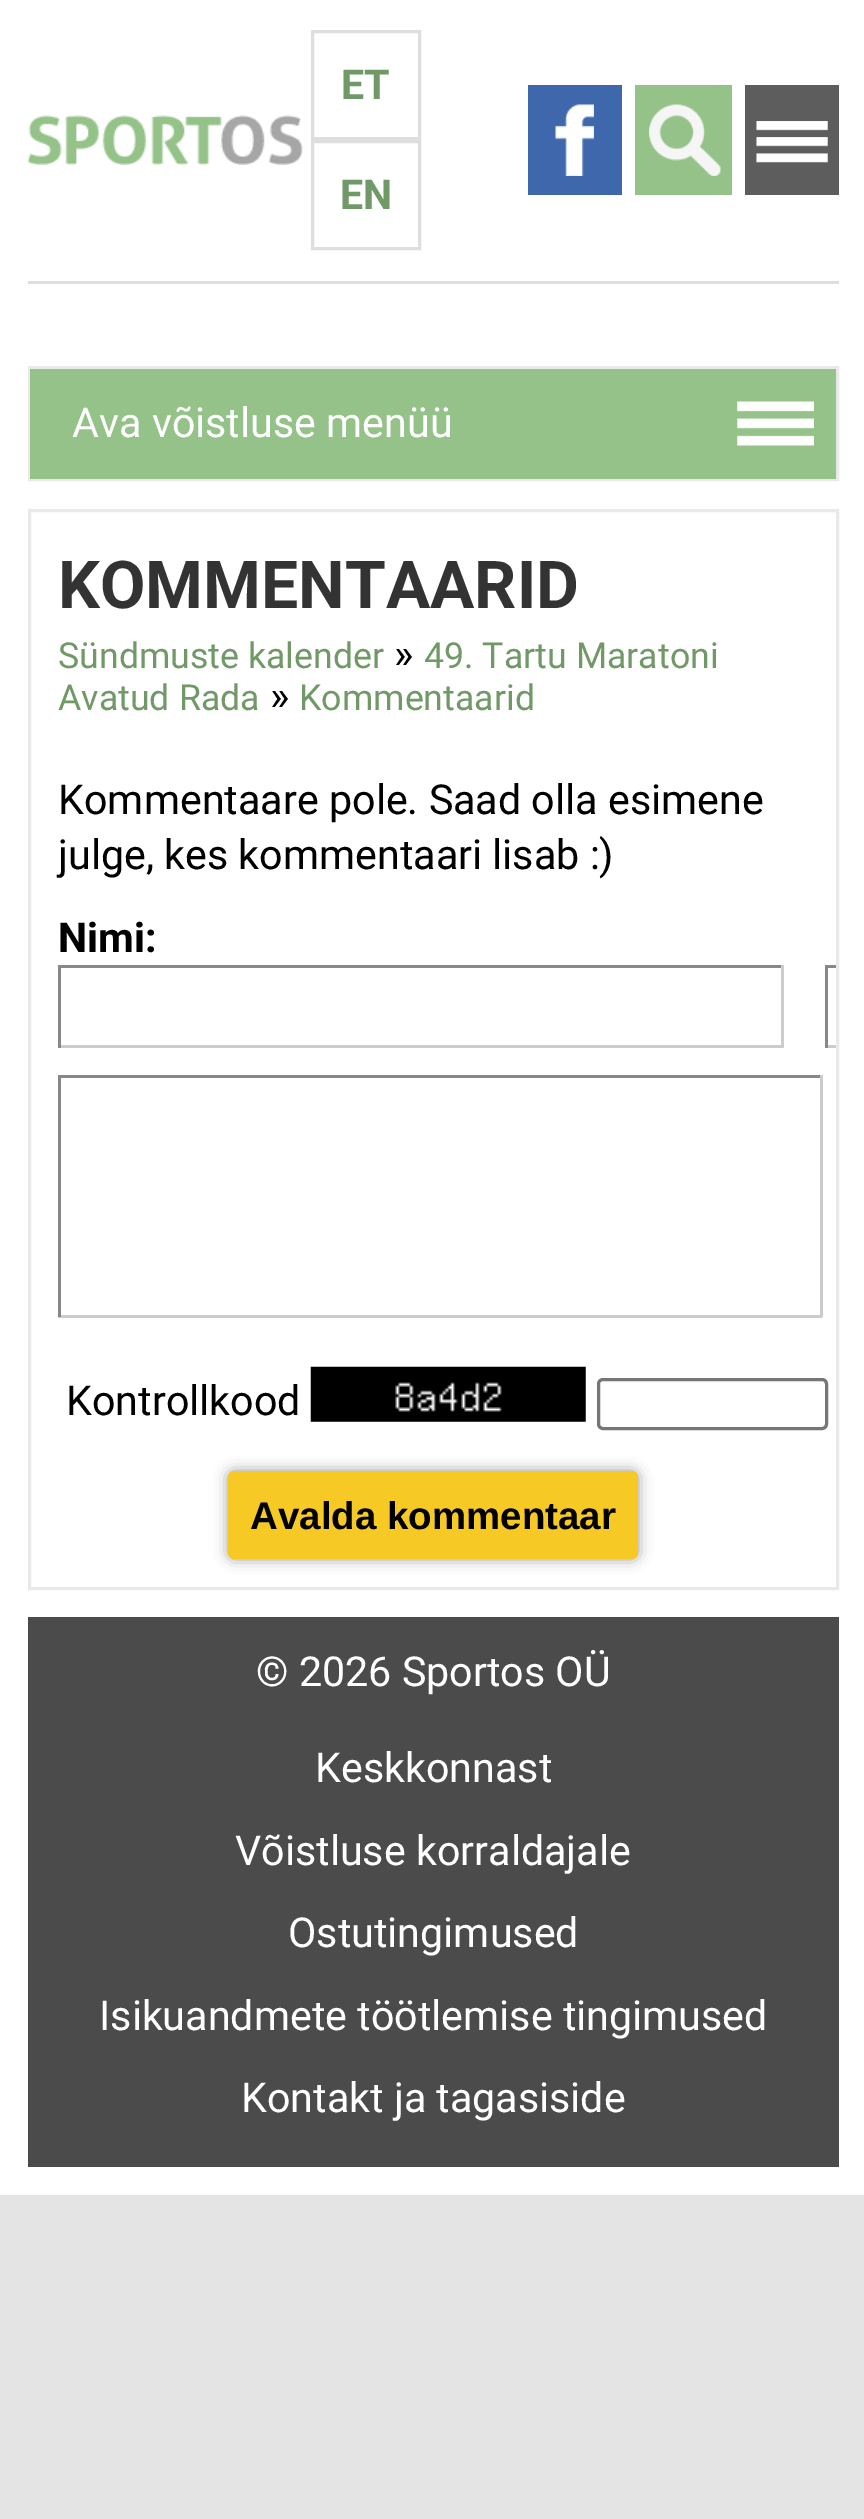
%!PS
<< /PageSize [864 2519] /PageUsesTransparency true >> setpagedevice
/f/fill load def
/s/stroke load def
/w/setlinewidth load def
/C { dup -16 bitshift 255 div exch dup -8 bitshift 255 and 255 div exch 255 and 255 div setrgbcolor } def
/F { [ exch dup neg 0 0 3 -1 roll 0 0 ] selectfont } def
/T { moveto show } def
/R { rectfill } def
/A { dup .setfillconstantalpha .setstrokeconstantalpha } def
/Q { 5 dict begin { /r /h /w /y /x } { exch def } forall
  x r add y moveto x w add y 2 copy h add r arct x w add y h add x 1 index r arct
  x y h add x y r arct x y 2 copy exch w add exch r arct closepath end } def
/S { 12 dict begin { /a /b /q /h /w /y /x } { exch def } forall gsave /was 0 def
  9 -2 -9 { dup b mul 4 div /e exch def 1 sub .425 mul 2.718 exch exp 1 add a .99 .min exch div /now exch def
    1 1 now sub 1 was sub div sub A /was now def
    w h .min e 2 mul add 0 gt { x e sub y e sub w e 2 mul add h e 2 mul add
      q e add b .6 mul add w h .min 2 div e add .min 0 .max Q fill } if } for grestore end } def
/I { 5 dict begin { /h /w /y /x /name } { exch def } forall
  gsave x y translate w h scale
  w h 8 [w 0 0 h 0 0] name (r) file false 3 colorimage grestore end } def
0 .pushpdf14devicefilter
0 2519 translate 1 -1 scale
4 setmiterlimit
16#E4E4E4 C
0 0 864 2519 R
16#FFFFFF C
0 0 864 2195 R
(1.rgb) 27 115 276 50 I
16#DEDEDE C
3 w
312.5 31.5 107 107 rectstroke
/Roboto-Bold 41.25 F
16#719967 C
(ET) 341 99 T
16#DEDEDE C
312.5 141.5 107 107 rectstroke
16#719967 C
(EN) 340 209 T
16#3F67AB C
528 85 94 110 R
(2.rgb) 555 104 39 72 I
16#94C288 C
635 85 97 110 R
(3.rgb) 649 104 72 72 I
16#5D5D5D C
745 85 94 110 R
(4.rgb) 756 121 72 42 I
16#DEDEDE C
28 281 811 3 R
16#E9E9E9 C
29.5 367.5 808 112 rectstroke
16#94C288 C
30 369 806 110 R
(5.rgb) 737 401 77 45 I
/Roboto-Regular 41.25 F
16#FFFFFF C
(Ava võistluse menüü) 72 437 T
16#E9E9E9 C
29.5 510.5 808 1078 rectstroke
/Roboto-Bold 66 F
16#333333 C
(KOMMENTAARID) 58 608 T
/Roboto-Regular 35.75 F
16#719967 C
(Sündmuste kalender) 58 668 T
/Roboto-Regular 41.25 F
16#000000 C
(») 394 668 T
/Roboto-Regular 35.75 F
16#719967 C
(49. Tartu Maratoni) 424 668 T
(Avatud Rada) 58 710 T
/Roboto-Regular 41.25 F
16#000000 C
(») 270 710 T
/Roboto-Regular 35.75 F
16#719967 C
(Kommentaarid) 299 710 T
/Roboto-Regular 41.25 F
16#000000 C
(Kommentaare pole. Saad olla esimene) 58 814 T
(julge, kes kommentaari lisab :\)) 58 869 T
/Roboto-Bold 41.25 F
(Nimi:) 58 952 T
16#888888 C
58 965 726 3 R
16#CCCCCC C
781 965 3 83 R
58 1045 726 3 R
16#888888 C
58 965 3 83 R
825 965 11 3 R
16#CCCCCC C
825 1045 11 3 R
16#888888 C
825 965 3 83 R
58 1075 764 3 R
16#CCCCCC C
820 1075 3 242 R
58 1315 764 3 R
16#888888 C
58 1075 3 242 R
/Roboto-Regular 41.25 F
16#000000 C
(Kontrollkood) 66 1415 T
(6.rgb) 310 1366 276 56 I
16#767676 C
598.5 1379.5 228 49 4.5 Q s
16#999999 C
228 1471 410 88 6 7 1 S
16#F6C925 C
228 1471 410 88 6 Q f
/LiberationSans-Bold 38.5 F
16#000000 C
(Avalda kommentaar) 250 1529 T
16#4B4B4B C
28 1617 811 550 R
/Roboto-Regular 41.25 F
16#FFFFFF C
(© 2026 Sportos OÜ) 256 1686 T
(Keskkonnast) 315 1782 T
(Võistluse korraldajale) 235 1865 T
(Ostutingimused) 288 1947 T
(Isikuandmete töötlemise tingimused) 99 2030 T
(Kontakt ja tagasiside) 241 2112 T
.poppdf14devicefilter showpage
